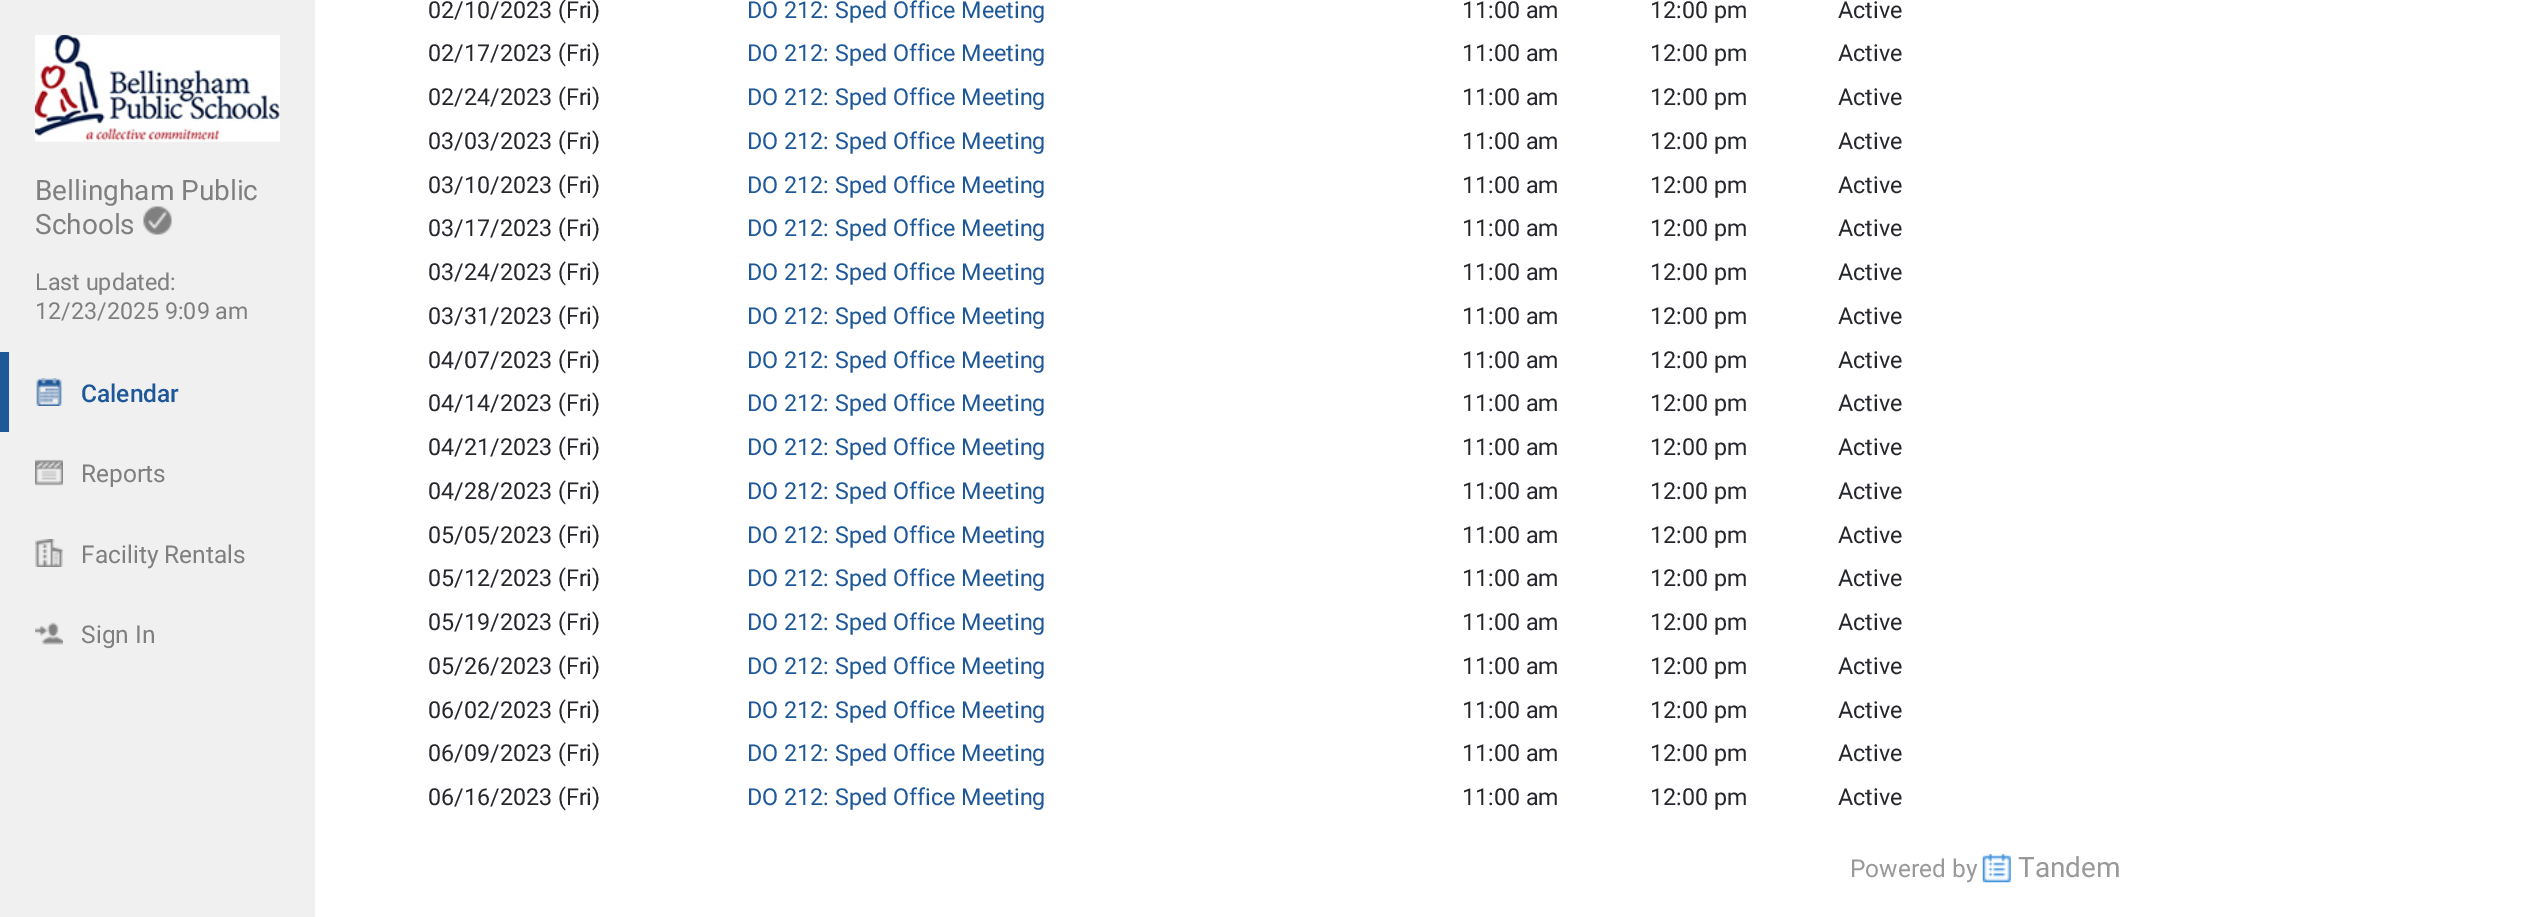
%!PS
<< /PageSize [2548 917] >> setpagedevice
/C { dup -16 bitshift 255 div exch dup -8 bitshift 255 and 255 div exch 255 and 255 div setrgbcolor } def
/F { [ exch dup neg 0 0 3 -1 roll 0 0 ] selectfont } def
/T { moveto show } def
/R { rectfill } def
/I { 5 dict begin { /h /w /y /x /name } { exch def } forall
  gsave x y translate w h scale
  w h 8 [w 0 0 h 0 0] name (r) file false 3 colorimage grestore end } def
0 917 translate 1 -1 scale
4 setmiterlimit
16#FFFFFF C
0 0 2548 917 R
16#F0F0F0 C
0 0 315 917 R
(1.rgb) 35 35 245 107 I
/Roboto-Regular 28 F
16#7F7F7F C
(Bellingham Public) 35 200 T
(Schools) 35 234 T
(2.rgb) 143 206 29 29 I
/Roboto-Regular 23.3 F
(Last updated:) 35 290 T
(12/23/2025 9:09 am) 35 319 T
16#1E5899 C
0 352 9 80 R
36 378 26 28 R
(3.rgb) 35 378 28 28 I
/Roboto-Medium 24.5 F
(Calendar) 81 402 T
(4.rgb) 35 459 28 27 I
/Roboto-Regular 24.5 F
16#7F7F7F C
(Reports) 81 482 T
(5.rgb) 35 539 28 28 I
(Facility Rentals) 81 563 T
(6.rgb) 35 622 28 23 I
(Sign In) 81 643 T
/Roboto-Regular 23.3 F
16#25272C C
(02/10/2023 \(Fri\)) 428 18 T
16#1E5899 C
(DO 212: Sped Office Meeting) 747 18 T
16#25272C C
(11:00 am) 1462 18 T
(12:00 pm) 1650 18 T
(Active) 1838 18 T
(02/17/2023 \(Fri\)) 428 61 T
16#1E5899 C
(DO 212: Sped Office Meeting) 747 61 T
16#25272C C
(11:00 am) 1462 61 T
(12:00 pm) 1650 61 T
(Active) 1838 61 T
(02/24/2023 \(Fri\)) 428 105 T
16#1E5899 C
(DO 212: Sped Office Meeting) 747 105 T
16#25272C C
(11:00 am) 1462 105 T
(12:00 pm) 1650 105 T
(Active) 1838 105 T
(03/03/2023 \(Fri\)) 428 149 T
16#1E5899 C
(DO 212: Sped Office Meeting) 747 149 T
16#25272C C
(11:00 am) 1462 149 T
(12:00 pm) 1650 149 T
(Active) 1838 149 T
(03/10/2023 \(Fri\)) 428 193 T
16#1E5899 C
(DO 212: Sped Office Meeting) 747 193 T
16#25272C C
(11:00 am) 1462 193 T
(12:00 pm) 1650 193 T
(Active) 1838 193 T
(03/17/2023 \(Fri\)) 428 236 T
16#1E5899 C
(DO 212: Sped Office Meeting) 747 236 T
16#25272C C
(11:00 am) 1462 236 T
(12:00 pm) 1650 236 T
(Active) 1838 236 T
(03/24/2023 \(Fri\)) 428 280 T
16#1E5899 C
(DO 212: Sped Office Meeting) 747 280 T
16#25272C C
(11:00 am) 1462 280 T
(12:00 pm) 1650 280 T
(Active) 1838 280 T
(03/31/2023 \(Fri\)) 428 324 T
16#1E5899 C
(DO 212: Sped Office Meeting) 747 324 T
16#25272C C
(11:00 am) 1462 324 T
(12:00 pm) 1650 324 T
(Active) 1838 324 T
(04/07/2023 \(Fri\)) 428 368 T
16#1E5899 C
(DO 212: Sped Office Meeting) 747 368 T
16#25272C C
(11:00 am) 1462 368 T
(12:00 pm) 1650 368 T
(Active) 1838 368 T
(04/14/2023 \(Fri\)) 428 411 T
16#1E5899 C
(DO 212: Sped Office Meeting) 747 411 T
16#25272C C
(11:00 am) 1462 411 T
(12:00 pm) 1650 411 T
(Active) 1838 411 T
(04/21/2023 \(Fri\)) 428 455 T
16#1E5899 C
(DO 212: Sped Office Meeting) 747 455 T
16#25272C C
(11:00 am) 1462 455 T
(12:00 pm) 1650 455 T
(Active) 1838 455 T
(04/28/2023 \(Fri\)) 428 499 T
16#1E5899 C
(DO 212: Sped Office Meeting) 747 499 T
16#25272C C
(11:00 am) 1462 499 T
(12:00 pm) 1650 499 T
(Active) 1838 499 T
(05/05/2023 \(Fri\)) 428 543 T
16#1E5899 C
(DO 212: Sped Office Meeting) 747 543 T
16#25272C C
(11:00 am) 1462 543 T
(12:00 pm) 1650 543 T
(Active) 1838 543 T
(05/12/2023 \(Fri\)) 428 586 T
16#1E5899 C
(DO 212: Sped Office Meeting) 747 586 T
16#25272C C
(11:00 am) 1462 586 T
(12:00 pm) 1650 586 T
(Active) 1838 586 T
(05/19/2023 \(Fri\)) 428 630 T
16#1E5899 C
(DO 212: Sped Office Meeting) 747 630 T
16#25272C C
(11:00 am) 1462 630 T
(12:00 pm) 1650 630 T
(Active) 1838 630 T
(05/26/2023 \(Fri\)) 428 674 T
16#1E5899 C
(DO 212: Sped Office Meeting) 747 674 T
16#25272C C
(11:00 am) 1462 674 T
(12:00 pm) 1650 674 T
(Active) 1838 674 T
(06/02/2023 \(Fri\)) 428 718 T
16#1E5899 C
(DO 212: Sped Office Meeting) 747 718 T
16#25272C C
(11:00 am) 1462 718 T
(12:00 pm) 1650 718 T
(Active) 1838 718 T
(06/09/2023 \(Fri\)) 428 761 T
16#1E5899 C
(DO 212: Sped Office Meeting) 747 761 T
16#25272C C
(11:00 am) 1462 761 T
(12:00 pm) 1650 761 T
(Active) 1838 761 T
(06/16/2023 \(Fri\)) 428 805 T
16#1E5899 C
(DO 212: Sped Office Meeting) 747 805 T
16#25272C C
(11:00 am) 1462 805 T
(12:00 pm) 1650 805 T
(Active) 1838 805 T
/Roboto-Regular 24.5 F
16#999999 C
(Powered by) 1850 877 T
(7.rgb) 1982 854 29 29 I
/Roboto-Regular 28 F
(Tandem) 2018 877 T
showpage
